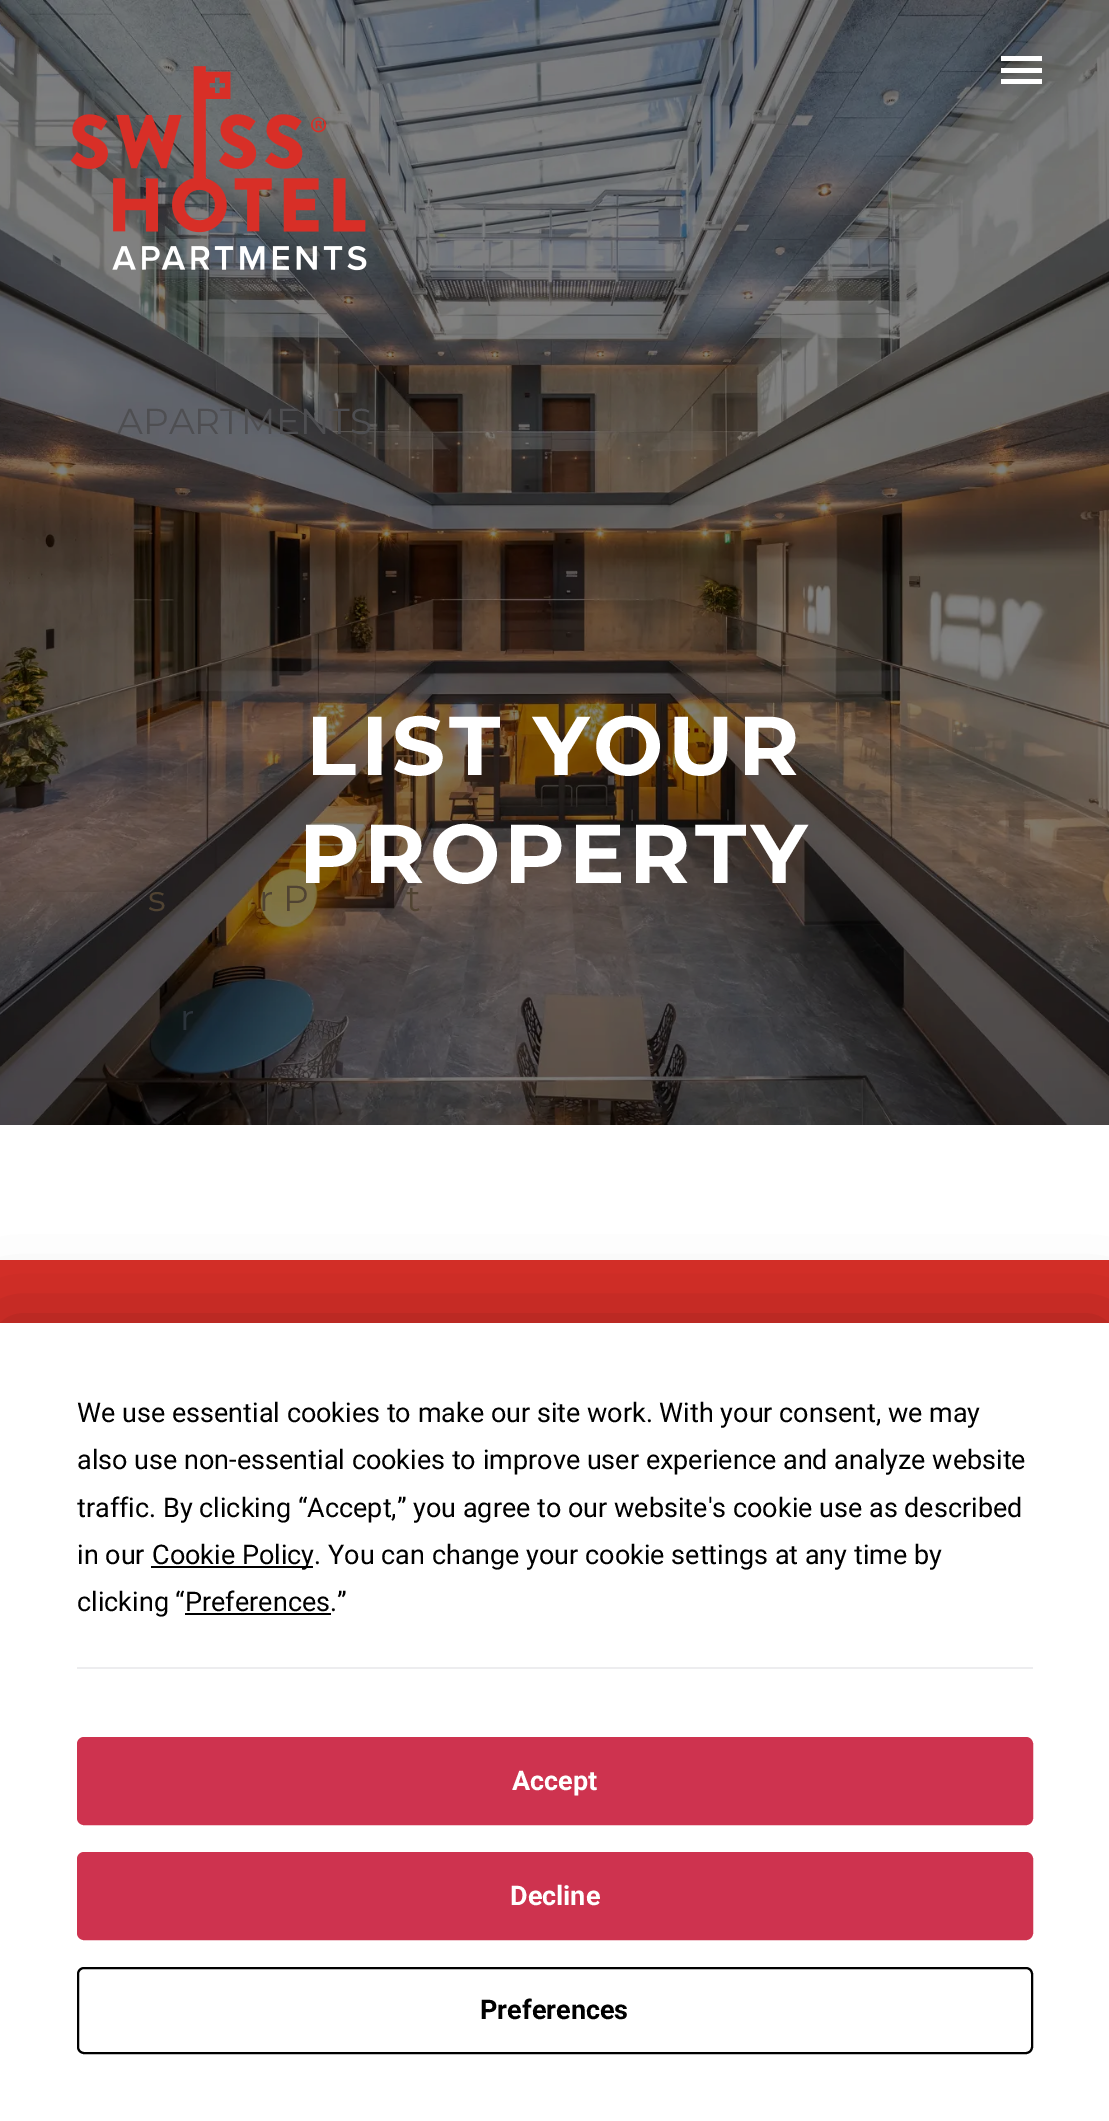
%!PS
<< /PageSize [1109 2121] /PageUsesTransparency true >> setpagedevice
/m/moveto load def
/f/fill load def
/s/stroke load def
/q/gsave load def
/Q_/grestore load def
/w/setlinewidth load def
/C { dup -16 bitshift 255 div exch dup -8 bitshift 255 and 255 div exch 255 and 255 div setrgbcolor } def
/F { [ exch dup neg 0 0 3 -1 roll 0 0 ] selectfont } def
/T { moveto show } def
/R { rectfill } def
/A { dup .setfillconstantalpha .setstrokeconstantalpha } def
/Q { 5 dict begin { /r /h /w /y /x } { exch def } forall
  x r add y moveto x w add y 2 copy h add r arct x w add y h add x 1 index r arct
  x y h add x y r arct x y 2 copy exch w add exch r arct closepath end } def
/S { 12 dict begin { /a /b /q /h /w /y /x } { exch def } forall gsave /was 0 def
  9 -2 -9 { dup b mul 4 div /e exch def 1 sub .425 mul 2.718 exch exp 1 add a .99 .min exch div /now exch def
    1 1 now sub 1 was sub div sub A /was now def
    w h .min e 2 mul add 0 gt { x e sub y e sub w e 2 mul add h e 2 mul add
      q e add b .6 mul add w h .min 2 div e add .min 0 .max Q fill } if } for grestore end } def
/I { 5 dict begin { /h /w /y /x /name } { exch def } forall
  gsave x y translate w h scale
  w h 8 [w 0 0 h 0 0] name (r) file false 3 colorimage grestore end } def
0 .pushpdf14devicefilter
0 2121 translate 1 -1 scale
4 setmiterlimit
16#FFFFFF C
0 0 1109 2121 R
(2.rgb) 0 0 1109 1125 I
(1.rgb) 70 66 297 205 I
1001 56 41 5 R
1001 68 41 5 R
1001 79 41 5 R
/Montserrat-Regular 36 F
16#4E4E51 C
(APARTMENTS) 117 434 T
16#504332 C
(s) 148 911 T
(r P) 259 911 T
(t) 406 911 T
16#2B333A C
(r) 180 1030 T
/Montserrat-Bold 83.25 F
16#FFFFFF C
306 775 m 4.25 0 (LIST YOUR) ashow
299 883 m 4.25 0 (PROPERTY) ashow
16#D72F27 C
0 1260 1109 63 R
16#000000 C
0 1323 1109 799 0 39.5 .25 S
16#FFFFFF C
0 1323 1109 798 R
/Roboto-Regular 27 F
16#000000 C
(We use essential cookies to make our site work. With your consent, we may) 77 1422 T
(also use non-essential cookies to improve user experience and analyze website) 77 1469 T
(traffic. By clicking “Accept,” you agree to our website's cookie use as described) 77 1517 T
(in our) 77 1564 T
151 1566 162 2 R
(Cookie Policy. You can change your cookie settings at any time by) 152 1564 T
(clicking “Preferences.”) 77 1611 T
185 1613 146 2 R
16#EDEDEF C
77 1667 956 2 R
16#CE334F C
78 1738 954 86 6 Q q f Q_
2 w
s
/Roboto-Bold 27 F
16#FFFFFF C
(Accept) 512 1790 T
16#CE334F C
78 1853 954 86 6 Q q f Q_
s
16#FFFFFF C
(Decline) 510 1905 T
16#000000 C
78 1968 954 85 6 Q s
(Preferences) 480 2019 T
.poppdf14devicefilter showpage
